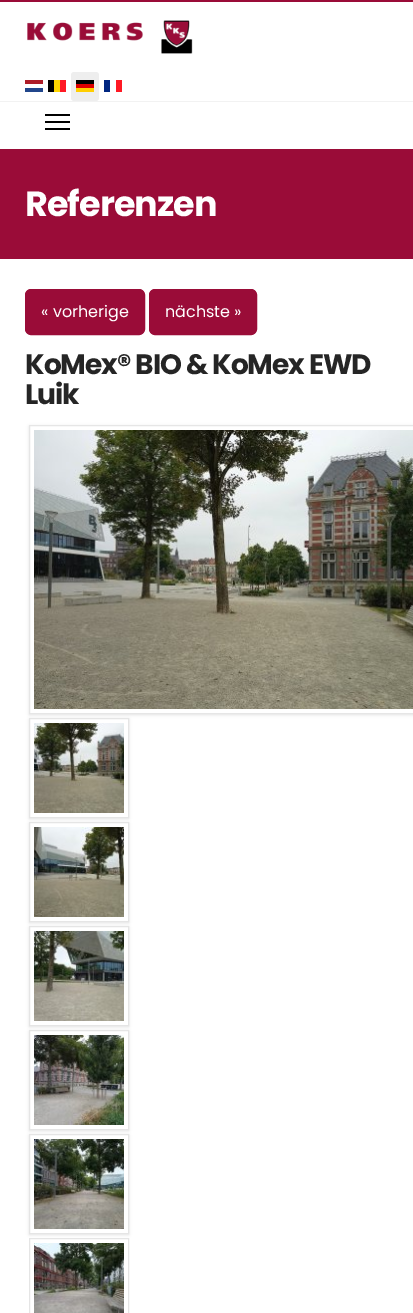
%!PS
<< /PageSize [413 1313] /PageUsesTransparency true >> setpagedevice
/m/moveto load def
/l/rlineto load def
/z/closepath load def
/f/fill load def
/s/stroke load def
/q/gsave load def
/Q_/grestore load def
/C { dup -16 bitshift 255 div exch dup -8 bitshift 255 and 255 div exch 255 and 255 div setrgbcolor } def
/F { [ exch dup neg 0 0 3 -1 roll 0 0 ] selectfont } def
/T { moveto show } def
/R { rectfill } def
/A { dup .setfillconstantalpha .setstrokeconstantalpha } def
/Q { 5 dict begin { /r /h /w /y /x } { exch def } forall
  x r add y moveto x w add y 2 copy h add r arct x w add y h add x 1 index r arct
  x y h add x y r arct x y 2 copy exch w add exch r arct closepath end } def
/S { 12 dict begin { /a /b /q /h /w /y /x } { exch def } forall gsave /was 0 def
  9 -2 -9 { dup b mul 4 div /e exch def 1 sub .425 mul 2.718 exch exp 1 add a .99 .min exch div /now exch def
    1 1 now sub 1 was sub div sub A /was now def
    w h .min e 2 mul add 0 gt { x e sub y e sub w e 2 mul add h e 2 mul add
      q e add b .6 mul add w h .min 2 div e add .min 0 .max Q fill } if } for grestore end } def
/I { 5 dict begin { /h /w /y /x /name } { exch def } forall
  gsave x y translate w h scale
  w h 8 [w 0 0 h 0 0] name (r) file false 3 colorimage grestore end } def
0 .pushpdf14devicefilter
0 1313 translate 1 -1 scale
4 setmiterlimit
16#FFFFFF C
0 0 413 1313 R
16#9A0C38 C
0 0 413 2 R
(1.rgb) 27 20 166 34 I
(2.rgb) 25 80 18 12 I
(3.rgb) 48 80 18 12 I
16#EEEEEE C
71 72 28 29 3 Q f
(4.rgb) 76 80 18 12 I
(5.rgb) 104 80 18 12 I
16#F2F2F2 C
0 101 413 1 R
16#000000 C
45 114 25 2 R
45 121 25 2 R
45 128 25 2 R
16#9A0C38 C
0 149 413 110 R
/Poppins-Bold 35 F
16#FFFFFF C
25 216 m -1 0 (Referenzen) ashow
16#9A0C38 C
25.5 289.5 119 45 5.5 Q q f Q_
s
/Poppins-Regular 16 F
16#FFFFFF C
(« vorherige) 41 317 T
16#9A0C38 C
149.5 289.5 107 45 5.5 Q q f Q_
s
16#FFFFFF C
(nächste ») 165 317 T
/Poppins-Bold 28 F
16#252525 C
25 374 m -1 0 (KoMex® BIO & KoMex EWD) ashow
25 404 m -1 0 (Luik) ashow
q
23 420 m 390 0 l 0 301 l -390 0 l z 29 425 m 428 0 l 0 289 l -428 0 l z eoclip newpath
16#000000 C
29 426 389 289 0 1.5 .1 S
Q_
16#E6E6E6 C
29.5 425.5 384 288 rectstroke
(6.rgb) 34 430 379 279 I
q
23 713 m 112 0 l 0 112 l -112 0 l z 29 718 m 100 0 l 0 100 l -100 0 l z eoclip newpath
16#000000 C
29 719 100 100 0 1.5 .1 S
Q_
16#E5E5E5 C
29.5 718.5 99 99 rectstroke
(7.rgb) 34 723 90 90 I
q
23 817 m 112 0 l 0 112 l -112 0 l z 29 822 m 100 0 l 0 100 l -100 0 l z eoclip newpath
16#000000 C
29 823 100 100 0 1.5 .1 S
Q_
29.5 822.5 99 99 rectstroke
(8.rgb) 34 827 90 90 I
q
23 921 m 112 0 l 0 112 l -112 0 l z 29 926 m 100 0 l 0 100 l -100 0 l z eoclip newpath
16#000000 C
29 927 100 100 0 1.5 .1 S
Q_
29.5 926.5 99 99 rectstroke
(9.rgb) 34 931 90 90 I
q
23 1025 m 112 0 l 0 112 l -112 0 l z 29 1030 m 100 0 l 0 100 l -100 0 l z eoclip newpath
16#000000 C
29 1031 100 100 0 1.5 .1 S
Q_
29.5 1030.5 99 99 rectstroke
(10.rgb) 34 1035 90 90 I
q
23 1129 m 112 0 l 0 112 l -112 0 l z 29 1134 m 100 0 l 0 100 l -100 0 l z eoclip newpath
16#000000 C
29 1135 100 100 0 1.5 .1 S
Q_
29.5 1134.5 99 99 rectstroke
(11.rgb) 34 1139 90 90 I
29.5 1238.5 99 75 rectstroke
(12.rgb) 34 1243 90 70 I
.poppdf14devicefilter showpage
